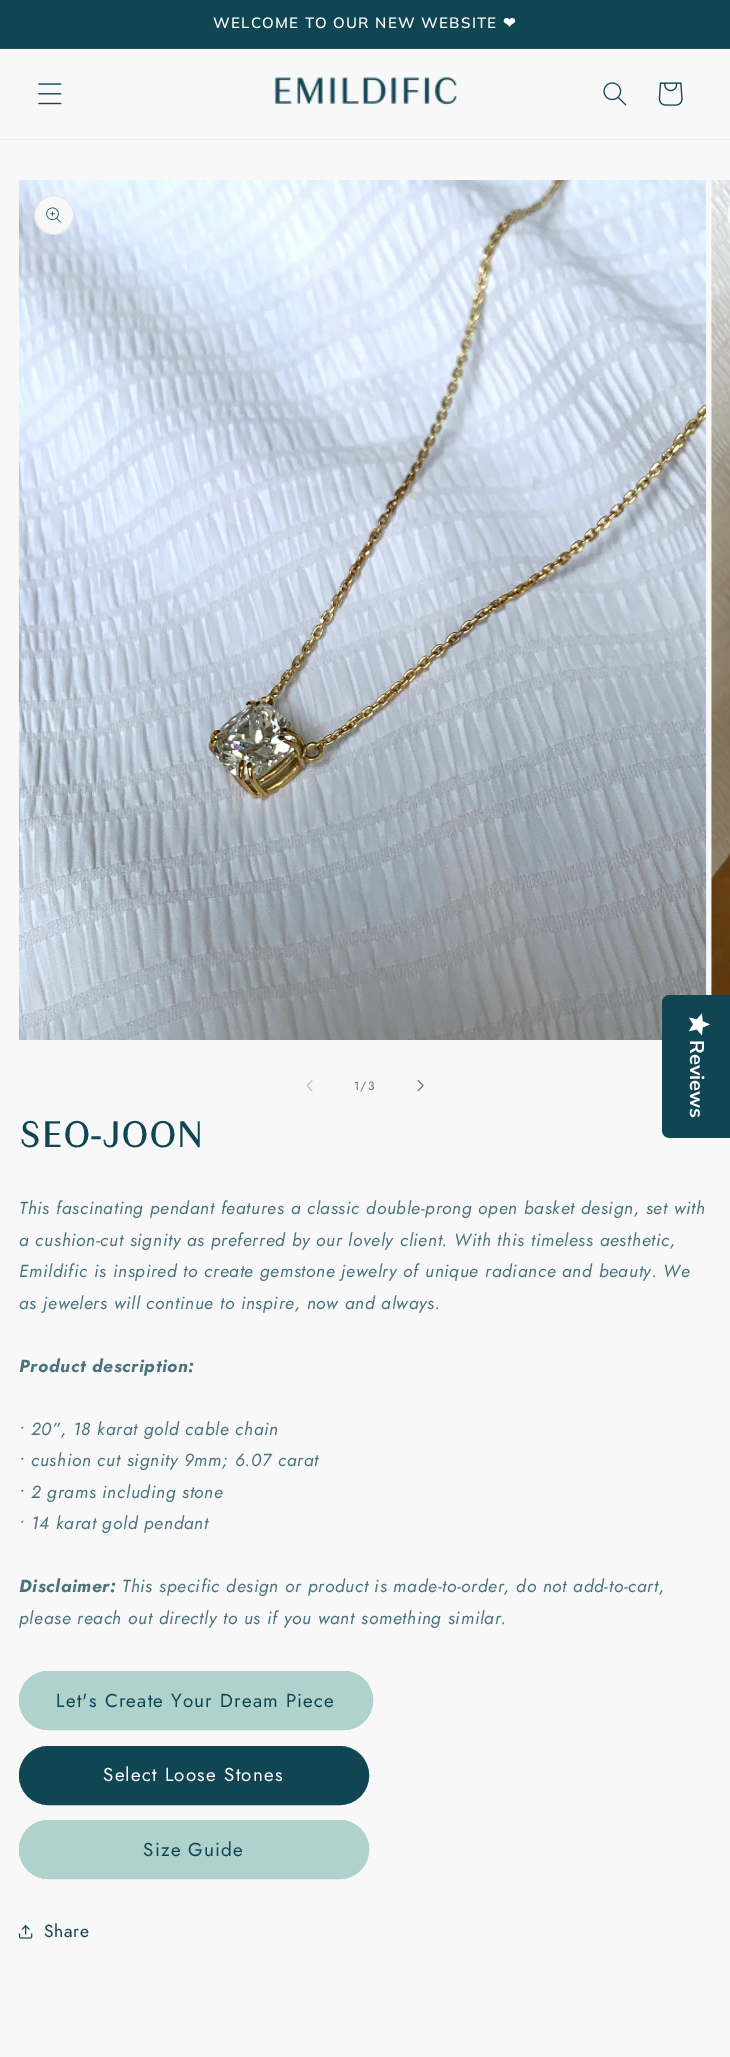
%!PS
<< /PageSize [730 2057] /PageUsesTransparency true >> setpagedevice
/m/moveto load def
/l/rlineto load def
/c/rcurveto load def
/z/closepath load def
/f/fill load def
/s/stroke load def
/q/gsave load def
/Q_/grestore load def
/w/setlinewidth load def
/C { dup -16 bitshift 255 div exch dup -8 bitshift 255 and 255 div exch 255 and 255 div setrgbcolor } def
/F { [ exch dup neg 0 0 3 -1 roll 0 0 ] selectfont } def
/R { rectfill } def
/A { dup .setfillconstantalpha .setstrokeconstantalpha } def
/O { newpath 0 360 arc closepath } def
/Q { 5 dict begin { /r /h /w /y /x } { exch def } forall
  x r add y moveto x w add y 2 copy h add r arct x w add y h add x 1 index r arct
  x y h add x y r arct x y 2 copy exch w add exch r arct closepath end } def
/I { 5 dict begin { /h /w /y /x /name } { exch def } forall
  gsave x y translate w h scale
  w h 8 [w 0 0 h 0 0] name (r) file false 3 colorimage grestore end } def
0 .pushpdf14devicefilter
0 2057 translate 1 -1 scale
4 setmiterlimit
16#F8F8F8 C
0 0 730 2057 R
16#104554 C
0 0 730 48 R
16#235462 C
0 48 730 1 R
/Muli-SemiBold 15 F
16#FFFFFF C
213 28 m 1.25 0 (WELCOME TO OUR NEW WEBSITE) ashow
/DejaVuSans-Bold 15 F
503 28 m 1.25 0 (❤) ashow
16#E5EAEB C
0 139 730 1 R
(1.rgb) 38 83 24 22 I
(2.rgb) 274 77 183 28 I
(3.rgb) 603 82 24 24 I
(4.rgb) 658 82 25 24 I
(6.rgb) 18 180 689 860 I
16#104554 C
730 995 m 0 143 l -60 0 l -4 0 -8 -3 -8 -8 c 0 -128 l 0 -4 4 -7 8 -7 c z f
(5.rgb) 688 1013 22 23 I
/NunitoSans-ExtraLight 20 F
16#FFFFFF C
q 690 1040 translate 90 rotate 0 0 m (Reviews) show Q_
16#F8F8F8 C
54 215 20 O f
0.1 A
16#104554 C
54 215 19.5 O s
1 A
(7.rgb) 46 207 15 16 I
(8.rgb) 711 180 19 815 I
16#F8F8F8 C
746 195 m -16 0 l 0 40 l 16 0 l -11 0 -20 -9 -20 -20 c 0 -11 9 -20 20 -20 c z f
0.1 A
16#104554 C
726.5 195.5 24 39 19.5 Q s
1 A
(9.rgb) 306 1080 7 12 I
/Jost-Regular 12 F
16#4A727D C
354 1090 m 1 0 (1/3) ashow
(10.rgb) 417 1080 7 12 I
/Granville-Bold 37.5 F
16#104554 C
19 1147 m .75 0 (SEO-JOON) ashow
/Jost-Italic 17.5 F
16#4A727D C
19 1214 m .75 0 (This fascinating pendant features a classic double-prong open basket design, set with) ashow
19 1246 m .75 0 (a cushion-cut signity as preferred by our lovely client. With this timeless aesthetic,) ashow
19 1277 m .75 0 (Emildific is inspired to create gemstone jewelry of unique radiance and beauty. We) ashow
19 1309 m .75 0 (as jewelers will continue to inspire, now and always.) ashow
/Jost-BoldItalic 17.5 F
19 1372 m .75 0 (Product description:) ashow
/Jost-Italic 17.5 F
19 1435 m .75 0 (• 20”, 18 karat gold cable chain) ashow
19 1466 m .75 0 (• cushion cut signity 9mm; 6.07 carat) ashow
19 1498 m .75 0 (• 2 grams including stone) ashow
19 1529 m .75 0 (• 14 karat gold pendant) ashow
/Jost-BoldItalic 17.5 F
19 1592 m .75 0 (Disclaimer:) ashow
/Jost-Italic 17.5 F
122 1592 m .75 0 (This specific design or product is made-to-order, do not add-to-cart,) ashow
19 1624 m .75 0 (please reach out directly to us if you want something similar.) ashow
16#AFD2CC C
19 1671 354 59 29.5 Q f
19.5 1671.5 353 58 29 Q s
/Jost-Regular 18.75 F
16#104554 C
56 1707 m 1.25 0 (Let's Create Your Dream Piece) ashow
19 1746 350 59 29.5 Q f
16#F8F8F8 C
19.5 1746.5 349 58 29 Q s
16#104554 C
2 w
20 1747 348 57 28.5 Q s
16#FFFFFF C
103 1781 m 1.25 0 (Select Loose Stones) ashow
16#AFD2CC C
19 1820 350 59 29.5 Q f
1 w
19.5 1820.5 349 58 29 Q s
16#104554 C
143 1856 m 1.25 0 (Size Guide) ashow
(11.rgb) 18 1925 15 14 I
/Jost-Regular 17.5 F
44 1937 m .75 0 (Share) ashow
.poppdf14devicefilter showpage
